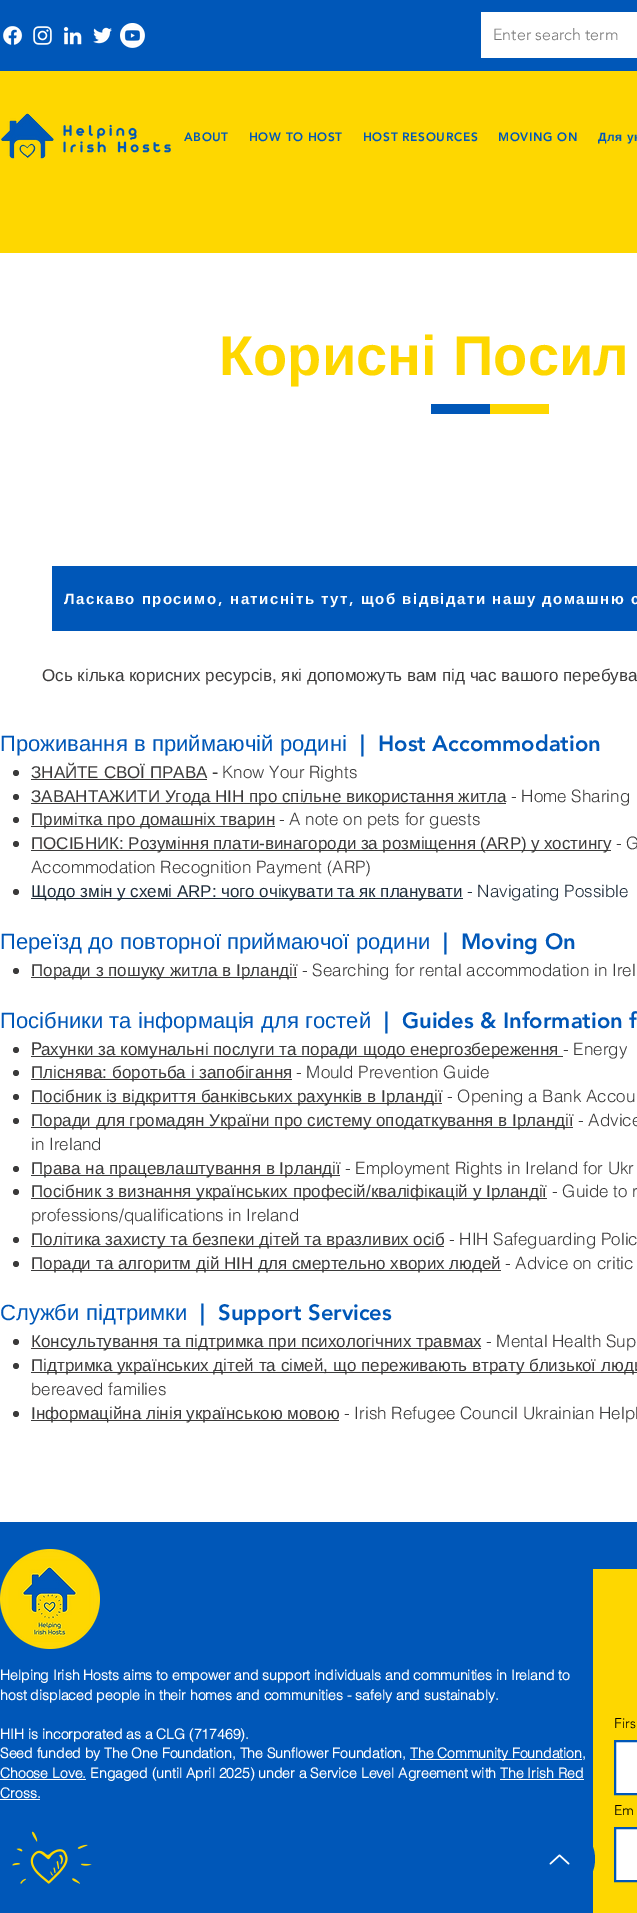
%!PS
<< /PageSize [637 1913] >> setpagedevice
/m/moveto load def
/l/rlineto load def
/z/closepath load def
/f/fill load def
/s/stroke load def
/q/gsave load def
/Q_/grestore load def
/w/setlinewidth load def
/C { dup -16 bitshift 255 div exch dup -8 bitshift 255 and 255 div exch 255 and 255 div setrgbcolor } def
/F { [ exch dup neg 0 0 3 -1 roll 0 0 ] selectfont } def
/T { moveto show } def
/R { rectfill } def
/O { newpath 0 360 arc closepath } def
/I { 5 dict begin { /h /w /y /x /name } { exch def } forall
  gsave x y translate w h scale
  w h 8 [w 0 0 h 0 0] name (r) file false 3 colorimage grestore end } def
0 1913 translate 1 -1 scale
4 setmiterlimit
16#FFFFFF C
0 0 637 1913 R
16#0057B8 C
0 0 637 71 R
(1.rgb) 3 26 20 19 I
(2.rgb) 33 26 19 19 I
(3.rgb) 63 26 19 19 I
(4.rgb) 93 27 19 17 I
(5.rgb) 120 23 25 25 I
16#FFFFFF C
481 12 156 46 R
/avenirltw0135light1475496-Light 16 F
16#787878 C
(Enter search term) 493 40 T
16#FED700 C
0 71 637 182 R
(6.rgb) 1 113 170 46 I
/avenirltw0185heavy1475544-Black 12 F
16#0057B8 C
184 141 m .6 0 (ABOUT) ashow
249 141 m .6 0 (HOW TO HOST) ashow
363 141 m .6 0 (HOST RESOURCES) ashow
498 141 m .6 0 (MOVING ON) ashow
/LiberationSans-Bold 12 F
598 141 m .6 0 (Для ук) ashow
/LiberationSans-Bold 56 F
16#FED700 C
219 375 m 1 0 32 (Корисні Посил) widthshow
16#0057B8 C
431 404 59 10 R
16#FED700 C
490 404 59 10 R
16#0057B8 C
52 566 585 65 R
/LiberationSans-Bold 15 F
16#FFFFFF C
64 604 m 1.5 0 (Ласкаво просимо) ashow
/avenirltw0185heavy1475544-Black 15 F
218 604 m 1.5 0 (,) ashow
/LiberationSans-Bold 15 F
230 604 m 1.5 0 (натисніть тут) ashow
/avenirltw0185heavy1475544-Black 15 F
349 604 m 1.5 0 (,) ashow
/LiberationSans-Bold 15 F
361 604 m 1.5 0 (щоб відвідати нашу домашню с) ashow
/LiberationSans-Regular 17 F
16#3B3A3A C
(Ось кілька корисних ресурсів, які допоможуть вам під час вашого перебува) 42 681 T
/LiberationSans-Regular 22 F
16#0057B8 C
(Проживання) 0 751 T
(в) 134 751 T
(приймаючій) 152 751 T
(родині) 280 751 T
/avenirltw0185heavy1475544-Black 22 F
(|  Host Accommodation) 360 751 T
16#3B3A3A C
16 773 3 O f
/LiberationSans-Regular 17 F
(ЗНАЙТЕ СВОЇ ПРАВА) 31 778 T
/helvetica-Bold 17 F
(-) 212 778 T
31 779 176 1 R
/helvetica-Light 17 F
(Know Your Rights) 222 778 T
16 797 3 O f
31 803 475 1 R
/LiberationSans-Regular 17 F
(ЗАВАНТАЖИТИ Угода HIH про спільне використання житла) 31 802 T
/helvetica-Light 17 F
(- Home Sharing) 511 802 T
16 820 3 O f
31 826 244 1 R
/LiberationSans-Regular 17 F
(Примітка про домашніх тварин) 31 825 T
/helvetica-Light 17 F
(- A note on pets for guests) 279 825 T
16 844 3 O f
31 850 580 1 R
/LiberationSans-Regular 17 F
31 849 m -.25 0 32 (ПОСІБНИК: Розуміння плати-винагороди за розміщення \(ARP\) у хостингу) widthshow
/helvetica-Light 17 F
(- G) 616 849 T
(Accommodation Recognition Payment \(ARP\)) 31 873 T
16 892 3 O f
16#1E2D3B C
31 898 432 1 R
/LiberationSans-Regular 17 F
31 897 m -.25 0 32 (Щодо змін у схемі ARP: чого очікувати) widthshow
(та як планувати) 337 897 T
/helvetica-Light 17 F
(- Navigating Possible) 467 897 T
/LiberationSans-Regular 22 F
16#0057B8 C
(Переїзд) 0 949 T
(до) 88 949 T
(повторної) 120 949 T
(приймаючої) 227 949 T
(родини) 356 949 T
/avenirltw0185heavy1475544-Black 22 F
(|  Moving On) 443 949 T
16#3B3A3A C
16 971 3 O f
31 977 266 1 R
/LiberationSans-Regular 17 F
(Поради з пошуку житла в Ірландії) 31 976 T
/helvetica-Light 17 F
(- Searching for rental accommodation in Irel) 302 976 T
/LiberationSans-Regular 22 F
16#0057B8 C
(Посібники) 0 1028 T
(та) 109 1028 T
(інформація) 138 1028 T
(для) 261 1028 T
(гостей) 305 1028 T
/avenirltw0185heavy1475544-Black 22 F
(|  Guides & Information f) 384 1028 T
16#3B3A3A C
16 1050 3 O f
/helvetica-Bold 17 F
(P) 31 1055 T
31 1056 532 1 R
/LiberationSans-Regular 17 F
(ахунки за комунальні послуги та поради щодо енергозбереження) 41 1055 T
/helvetica-Light 17 F
(- Energy) 563 1055 T
16 1073 3 O f
31 1079 261 1 R
/LiberationSans-Regular 17 F
(Пліснява: боротьба і запобігання) 31 1078 T
/helvetica-Light 17 F
(- Mould Prevention Guide) 296 1078 T
16 1097 3 O f
31 1103 411 1 R
/LiberationSans-Regular 17 F
(Посібник із відкриття банківських рахунків в Ірландії) 31 1102 T
/helvetica-Light 17 F
(- Opening a Bank Accou) 447 1102 T
16 1121 3 O f
31 1127 542 1 R
/LiberationSans-Regular 17 F
(Поради для громадян України про систему оподаткування в Ірландії) 31 1126 T
/helvetica-Light 17 F
(- Advice) 578 1126 T
(in Ireland) 31 1150 T
16 1169 3 O f
31 1175 309 1 R
/LiberationSans-Regular 17 F
(Права на працевлаштування в Ірландії) 31 1174 T
/helvetica-Light 17 F
(- Employment Rights in Ireland for Ukr) 345 1174 T
16 1192 3 O f
31 1198 516 1 R
/LiberationSans-Regular 17 F
(Посібник з визнання українських професій/кваліфікацій у Ірландії) 31 1197 T
/helvetica-Light 17 F
(- Guide to r) 552 1197 T
(professions/qualifications in Ireland) 31 1221 T
16 1240 3 O f
31 1246 413 1 R
/LiberationSans-Regular 17 F
(Політика захисту та безпеки дітей та вразливих осіб) 31 1245 T
/helvetica-Light 17 F
(- HIH Safeguarding Polic) 449 1245 T
16 1264 3 O f
31 1270 470 1 R
/LiberationSans-Regular 17 F
(Поради та алгоритм дій HIH для смертельно хворих людей) 31 1269 T
/helvetica-Light 17 F
(- Advice on critic) 505 1269 T
/LiberationSans-Regular 22 F
16#0057B8 C
(Служби) 0 1320 T
(підтримки) 86 1320 T
/avenirltw0185heavy1475544-Black 22 F
(|  Support Services) 200 1320 T
16#3B3A3A C
16 1342 3 O f
31 1348 450 1 R
/LiberationSans-Regular 17 F
(Консультування та підтримка при психологічних травмах) 31 1347 T
/helvetica-Light 17 F
(- Mental Health Sup) 486 1347 T
16 1366 3 O f
31 1372 606 1 R
/LiberationSans-Regular 17 F
(Підтримка українських дітей та сімей, що переживають втрату близької люди) 31 1371 T
/helvetica-Light 17 F
(bereaved families) 31 1395 T
16 1414 3 O f
31 1420 308 1 R
/LiberationSans-Regular 17 F
(Інформаційна лінія українською мовою) 31 1419 T
/helvetica-Light 17 F
(- Irish Refugee Council Ukrainian Helpl) 344 1419 T
16#0057B8 C
0 1522 637 391 R
(7.rgb) 0 1549 100 100 I
/helvetica-Bold 14 F
16#FFFFFF C
(Helping Irish Hosts aims to empower and support individuals and communities in Ireland to) 0 1680 T
(host displaced people in their homes and communities - safely and sustainably.) 0 1700 T
(HIH is incorporated as a CLG \(717469\).) 0 1739 T
(Seed funded by The One Foundation, The Sunflower Foundation,) 0 1758 T
410 1759 172 1 R
(The Community Foundation,) 410 1758 T
0 1779 86 1 R
(Choose Love. Engaged \(until April 2025\) under a Service Level Agreement with The Irish Red) 0 1778 T
500 1779 84 1 R
(Cross.) 0 1798 T
0 1799 40 1 R
(8.rgb) 12 1831 80 53 I
16#FED700 C
593 1569 44 344 R
/avenirltw0135light1475496-Light 14 F
16#000000 C
(Firs) 614 1728 T
16#FFFFFF C
615 1741 m 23 0 l 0 53 l -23 0 l z q f Q_
16#0057B8 C
2 w
s
16#000000 C
(Em) 614 1815 T
16#FFFFFF C
615 1828 m 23 0 l 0 53 l -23 0 l z q f Q_
16#0057B8 C
s
559 1859 36 O f
(9.rgb) 549 1854 21 11 I
showpage
